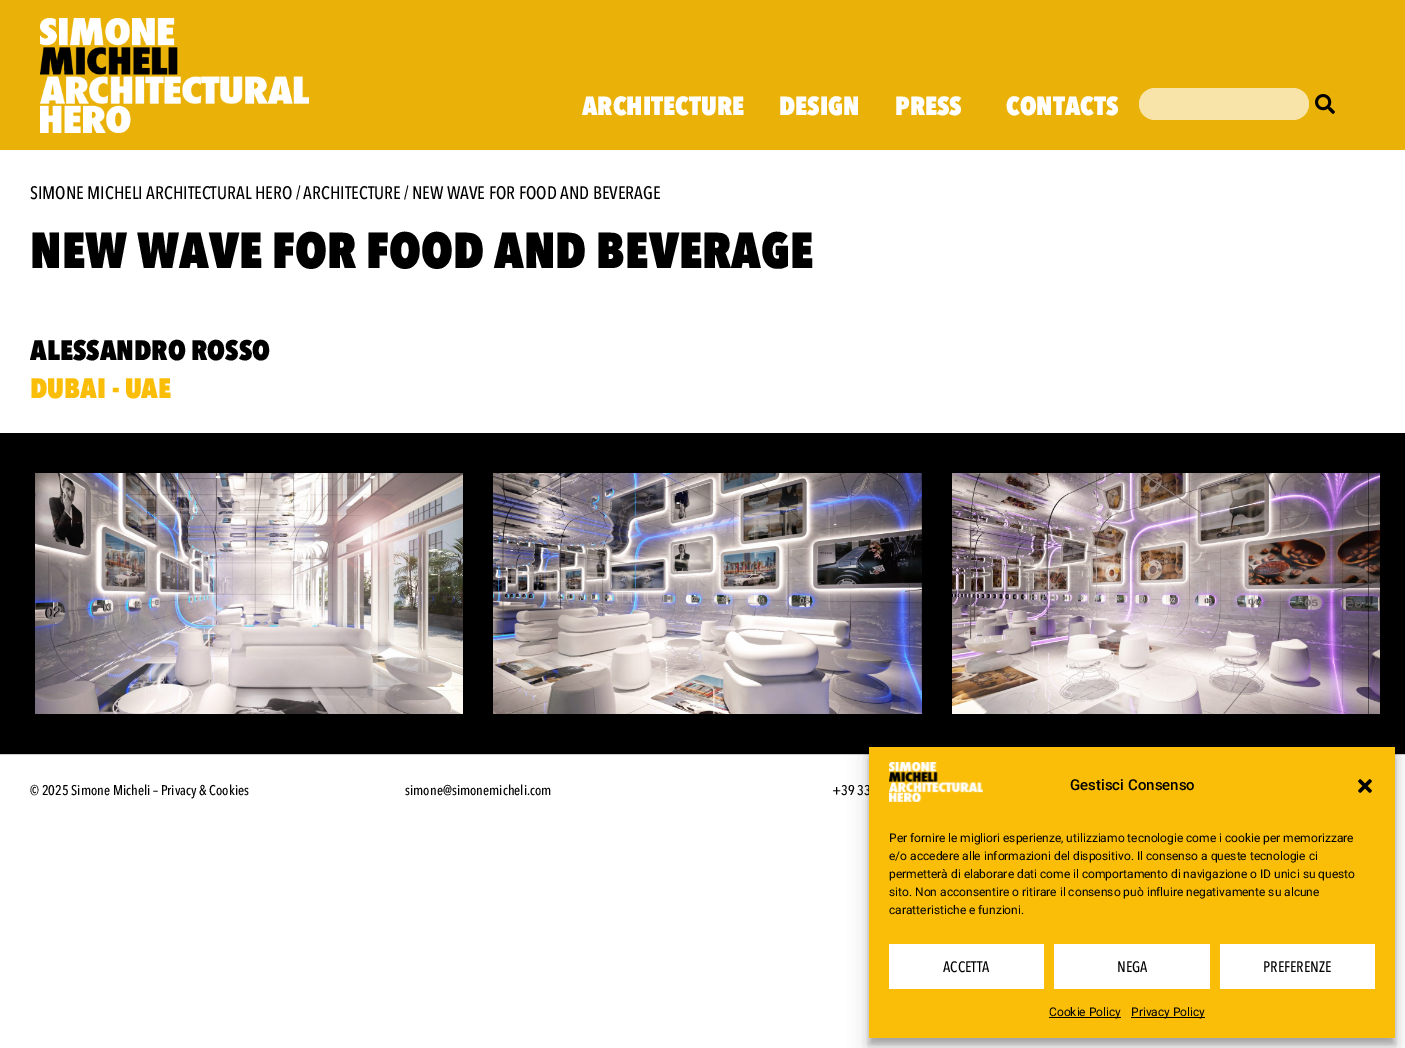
%!PS
<< /PageSize [1405 1048] /PageUsesTransparency true >> setpagedevice
/f/fill load def
/C { dup -16 bitshift 255 div exch dup -8 bitshift 255 and 255 div exch 255 and 255 div setrgbcolor } def
/F { [ exch dup neg 0 0 3 -1 roll 0 0 ] selectfont } def
/T { moveto show } def
/R { rectfill } def
/A { dup .setfillconstantalpha .setstrokeconstantalpha } def
/Q { 5 dict begin { /r /h /w /y /x } { exch def } forall
  x r add y moveto x w add y 2 copy h add r arct x w add y h add x 1 index r arct
  x y h add x y r arct x y 2 copy exch w add exch r arct closepath end } def
/S { 12 dict begin { /a /b /q /h /w /y /x } { exch def } forall gsave /was 0 def
  9 -2 -9 { dup b mul 4 div /e exch def 1 sub .425 mul 2.718 exch exp 1 add a .99 .min exch div /now exch def
    1 1 now sub 1 was sub div sub A /was now def
    w h .min e 2 mul add 0 gt { x e sub y e sub w e 2 mul add h e 2 mul add
      q e add b .6 mul add w h .min 2 div e add .min 0 .max Q fill } if } for grestore end } def
/I { 5 dict begin { /h /w /y /x /name } { exch def } forall
  gsave x y translate w h scale
  w h 8 [w 0 0 h 0 0] name (r) file false 3 colorimage grestore end } def
0 .pushpdf14devicefilter
0 1048 translate 1 -1 scale
4 setmiterlimit
16#FFFFFF C
0 0 1405 1048 R
16#EAB208 C
0 0 1405 150 R
(1.rgb) 40 18 269 115 I
/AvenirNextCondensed-Black 26 F
16#FFFFFF C
(ARCHITECTURE) 582 115 T
(DESIGN) 779 115 T
(PRESS) 895 115 T
(CONTACTS) 1006 115 T
16#F8E4A9 C
1139 88 170 32 16 Q f
(2.rgb) 1315 94 20 20 I
/AvenirNextCondensed-Medium 18 F
16#000000 C
(SIMONE MICHELI ARCHITECTURAL HERO / ARCHITECTURE / NEW WAVE FOR FOOD AND BEVERAGE) 30 199 T
/AvenirNextCondensed-Black 50 F
(NEW WAVE FOR FOOD AND BEVERAGE) 30 268 T
/AvenirNextCondensed-Black 28 F
(ALESSANDRO ROSSO) 30 360 T
16#FABE09 C
(DUBAI - UAE) 30 398 T
16#000000 C
0 433 1405 321 R
(3.rgb) 35 473 428 241 I
(4.rgb) 493 473 429 241 I
(5.rgb) 952 473 428 241 I
16#CCCCCC C
0 754 1405 1 R
/AvenirNextCondensed-Medium 14 F
16#000000 C
(© 2025 Simone Micheli – Privacy & Cookies) 30 795 T
(simone@simonemicheli.com) 405 795 T
(+39 33) 832 795 T
869 753 526 291 0 3 .23 S
869 757 526 291 0 10 .19 S
16#FABE09 C
869 747 526 291 R
(6.rgb) 889 762 94 40 I
/Roboto-Medium 15 F
16#000000 C
(Gestisci Consenso) 1070 790 T
(7.rgb) 1358 779 14 14 I
/Roboto-Regular 12 F
(Per fornire le migliori esperienze, utilizziamo tecnologie come i cookie per memorizzare) 889 842 T
(e/o accedere alle informazioni del dispositivo. Il consenso a queste tecnologie ci) 889 860 T
(permetterà di elaborare dati come il comportamento di navigazione o ID unici su questo) 889 878 T
(sito. Non acconsentire o ritirare il consenso può influire negativamente su alcune) 889 896 T
(caratteristiche e funzioni.) 889 914 T
16#FFFFFF C
889 944 155 45 R
/AvenirNextCondensed-Medium 15 F
16#000000 C
(ACCETTA) 943 972 T
16#FFFFFF C
1054 944 156 45 R
16#000000 C
(NEGA) 1117 972 T
16#FFFFFF C
1220 944 155 45 R
16#000000 C
(PREFERENZE) 1263 972 T
1049 1017 72 1 R
/Roboto-Regular 12 F
(Cookie Policy) 1049 1016 T
1131 1017 74 1 R
(Privacy Policy) 1131 1016 T
.poppdf14devicefilter showpage
